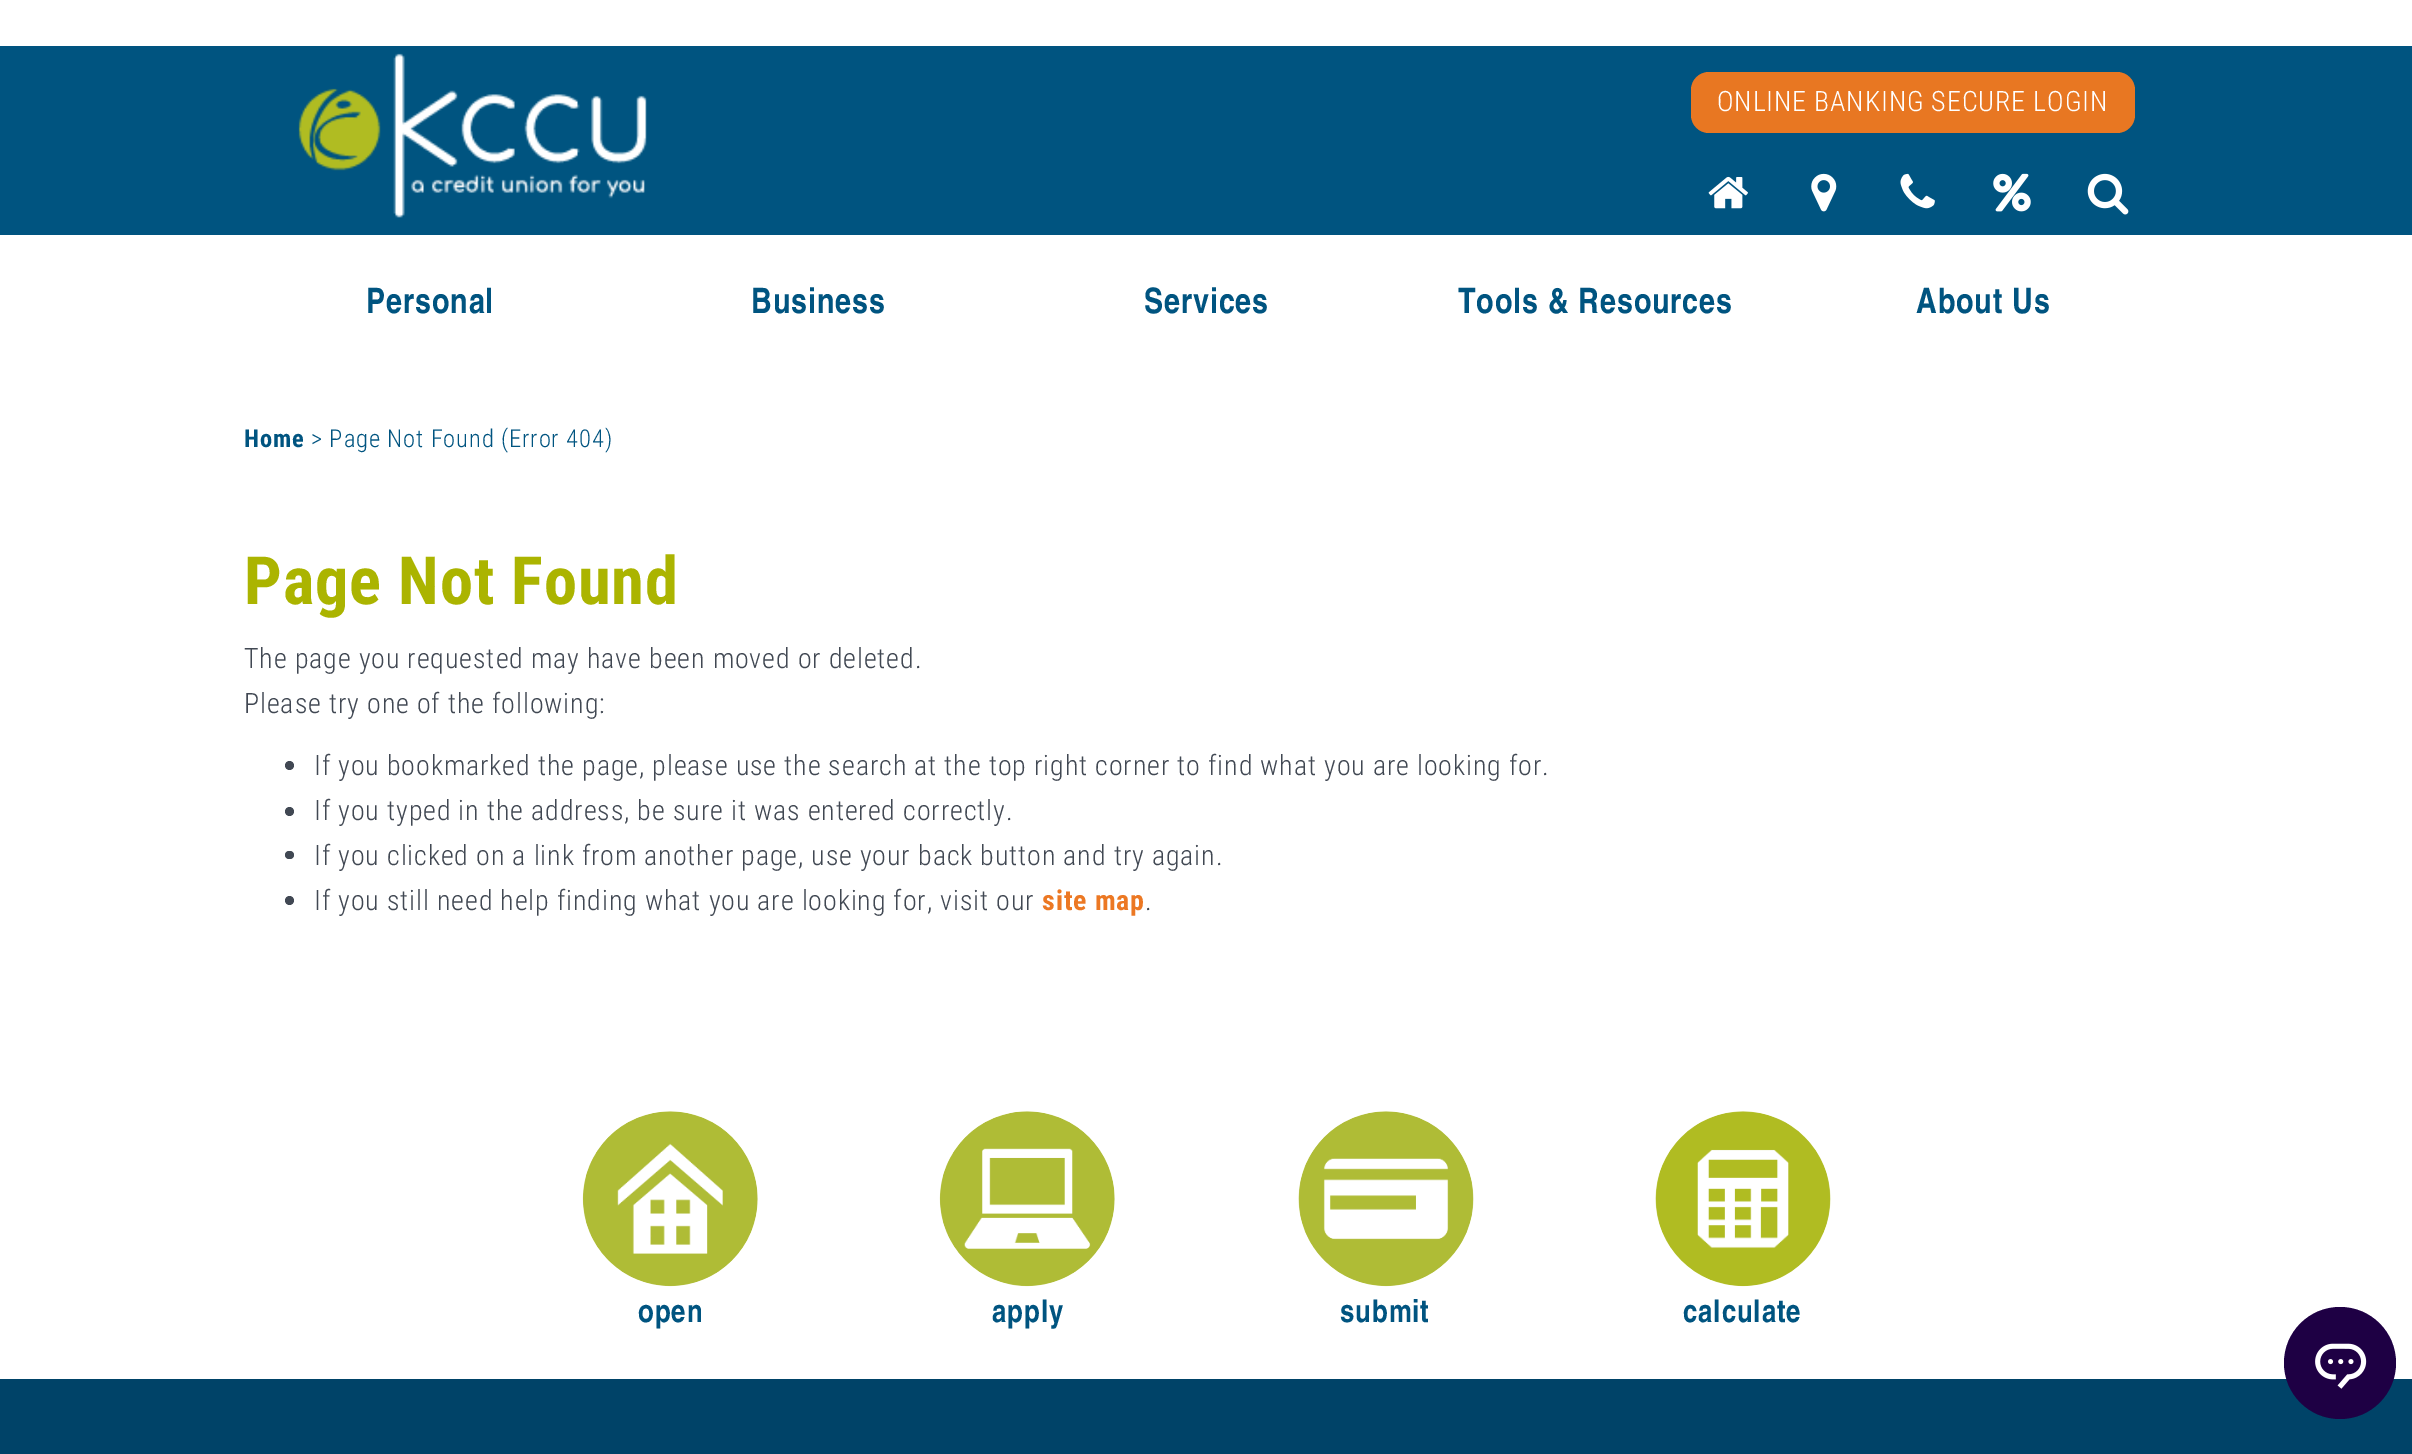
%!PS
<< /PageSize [2412 1454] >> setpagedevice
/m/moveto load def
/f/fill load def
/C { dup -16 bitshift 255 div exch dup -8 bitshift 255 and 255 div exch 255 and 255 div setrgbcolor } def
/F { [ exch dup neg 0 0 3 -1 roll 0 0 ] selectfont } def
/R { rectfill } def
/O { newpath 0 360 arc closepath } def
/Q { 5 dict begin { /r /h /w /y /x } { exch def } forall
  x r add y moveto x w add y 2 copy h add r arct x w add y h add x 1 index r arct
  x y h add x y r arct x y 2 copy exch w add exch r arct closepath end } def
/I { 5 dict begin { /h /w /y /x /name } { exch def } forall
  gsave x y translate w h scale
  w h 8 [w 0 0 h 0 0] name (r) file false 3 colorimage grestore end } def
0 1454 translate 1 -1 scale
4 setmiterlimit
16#FFFFFF C
0 0 2412 1454 R
16#005480 C
0 46 2412 189 R
(1.rgb) 298 53 349 165 I
16#E87722 C
1691 72 444 61 18 Q f
/RobotoCondensed-Light 28 F
16#FFFFFF C
1717 111 m .88 0 (ONLINE BANKING SECURE LOGIN) ashow
(2.rgb) 1708 176 40 33 I
(3.rgb) 1811 173 26 39 I
(4.rgb) 1900 173 35 36 I
(5.rgb) 1993 173 38 39 I
(6.rgb) 2087 173 42 42 I
/TeXGyreHerosCn-Bold 35 F
16#005480 C
366 313 m .88 0 (Personal) ashow
751 313 m .88 0 (Business) ashow
1144 313 m .88 0 (Services) ashow
1458 313 m .88 0 (Tools & Resources) ashow
1916 313 m .88 0 (About Us) ashow
/RobotoCondensed-Bold 24.5 F
244 447 m .88 0 (Home) ashow
/RobotoCondensed-Light 24.5 F
311 447 m .88 0 (> Page Not Found \(Error 404\)) ashow
/RobotoCondensed-Bold 66.5 F
16#ABB400 C
244 604 m .88 0 (Page Not Found) ashow
/RobotoCondensed-Light 28 F
16#414853 C
244 668 m .88 0 (The page you requested may have been moved or deleted.) ashow
244 713 m .88 0 (Please try one of the following:) ashow
289.5 765.5 4.5 O f
314 775 m .88 0 (If you bookmarked the page, please use the search at the top right corner to find what you are looking for.) ashow
289.5 811.5 4.5 O f
314 820 m .88 0 (If you typed in the address, be sure it was entered correctly.) ashow
285 851 9 8 4 Q f
314 865 m .88 0 (If you clicked on a link from another page, use your back button and try again.) ashow
289.5 900.5 4.5 O f
314 910 m .88 0 (If you still need help finding what you are looking for, visit our) ashow
/RobotoCondensed-Bold 28 F
16#EC7823 C
1042 910 m .88 0 (site map) ashow
/RobotoCondensed-Light 28 F
16#414853 C
1145 910 m .88 0 (.) ashow
(7.rgb) 582 1111 176 176 I
/TeXGyreHerosCn-Bold 31.5 F
16#005480 C
638 1322 m .88 0 (open) ashow
(8.rgb) 939 1111 176 176 I
992 1322 m .88 0 (apply) ashow
(9.rgb) 1298 1111 176 176 I
1340 1322 m .88 0 (submit) ashow
(10.rgb) 1655 1111 176 176 I
1683 1322 m .88 0 (calculate) ashow
16#004368 C
0 1379 2412 75 R
16#1E0044 C
2340 1363 56 O f
(11.rgb) 2315 1343 52 46 I
showpage
